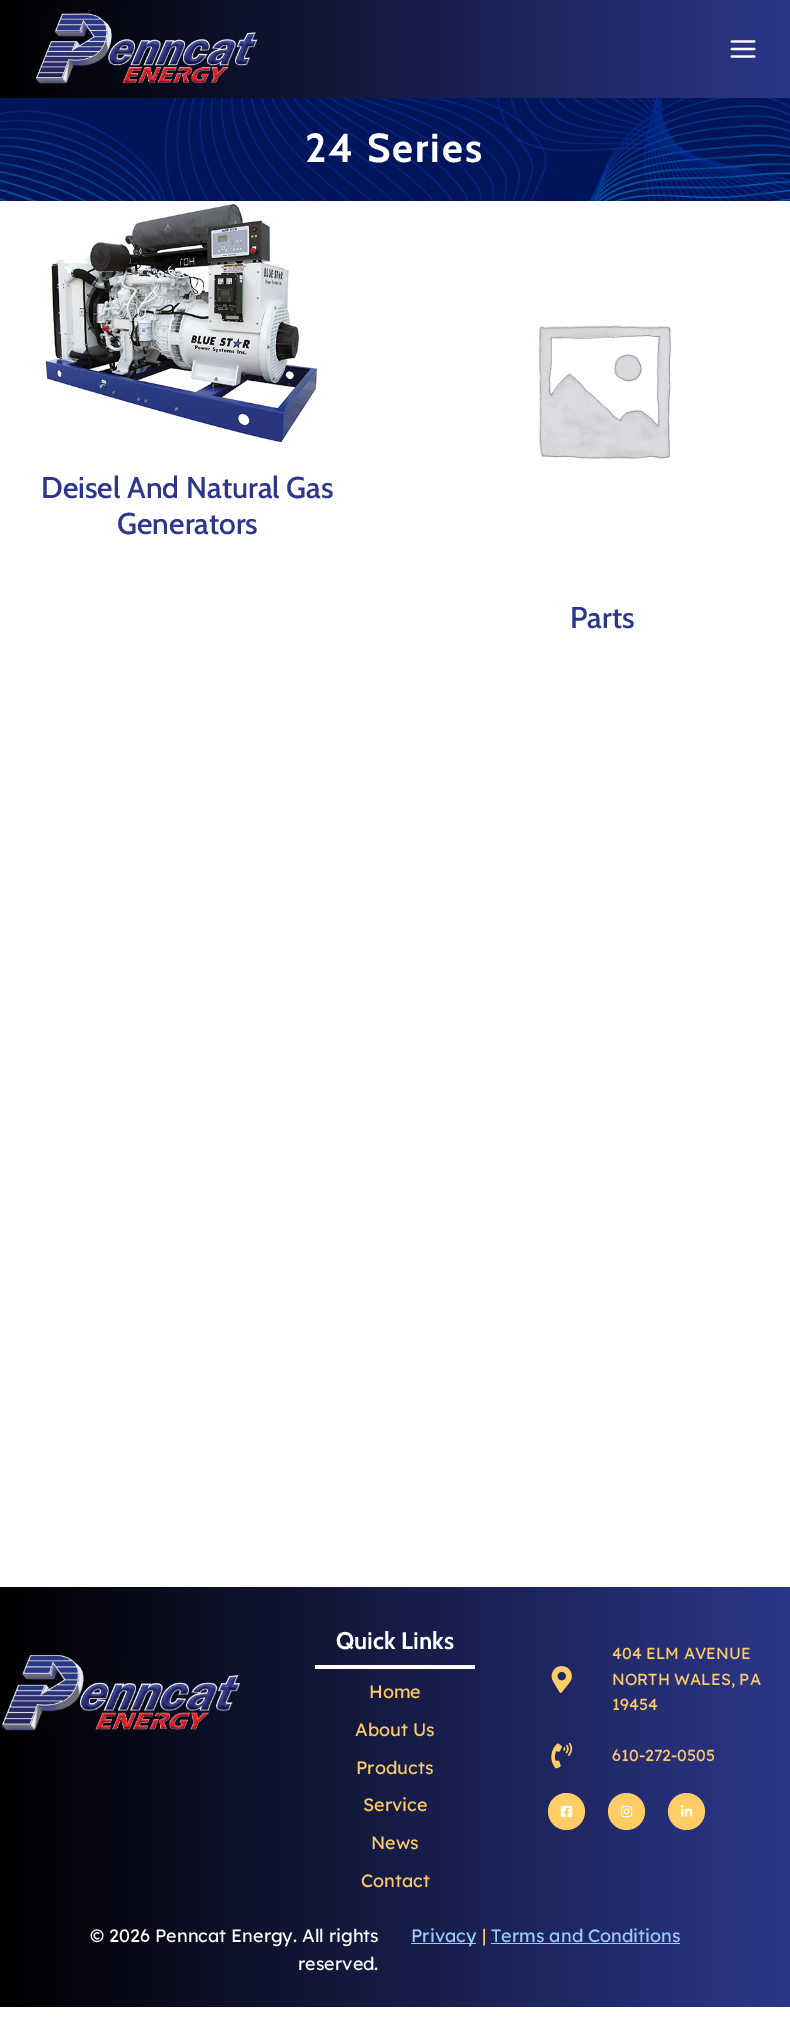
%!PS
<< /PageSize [790 2043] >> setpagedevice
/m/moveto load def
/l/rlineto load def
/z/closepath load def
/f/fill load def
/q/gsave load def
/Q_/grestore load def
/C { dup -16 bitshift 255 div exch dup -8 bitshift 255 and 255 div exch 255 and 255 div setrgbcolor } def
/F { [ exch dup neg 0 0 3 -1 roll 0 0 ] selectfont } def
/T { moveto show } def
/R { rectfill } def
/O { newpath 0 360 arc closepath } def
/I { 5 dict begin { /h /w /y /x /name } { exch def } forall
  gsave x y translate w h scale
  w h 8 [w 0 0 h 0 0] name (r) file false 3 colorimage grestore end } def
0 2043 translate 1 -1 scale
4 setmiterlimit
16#FFFFFF C
0 0 790 2043 R
q 0 0 m 790 0 l 0 98 l -790 0 l z clip newpath
<< /ShadingType 2 /ColorSpace /DeviceRGB /Coords [0 49 790 49] /Extend [true true] /Function << /FunctionType 2 /Domain [0 1] /C0 [0 0 0] /C1 [.173 .216 .541] /N 1 >> >> shfill Q_
(1.rgb) 36 13 222 71 I
(2.rgb) 730 40 26 18 I
(3.rgb) 0 98 790 103 I
/Cabin-Bold 40.5 F
305 162 m 2 0 (24 Series) ashow
(4.rgb) 45 203 273 240 I
/Cabin-Medium 30 F
16#2C378A C
(Deisel And Natural Gas) 41 498 T
(Generators) 117 534 T
(5.rgb) 538 325 133 134 I
(Parts) 570 628 T
q 0 1587 m 790 0 l 0 309 l -790 0 l z clip newpath
<< /ShadingType 2 /ColorSpace /DeviceRGB /Coords [0 1742 790 1742] /Extend [true true] /Function << /FunctionType 2 /Domain [0 1] /C0 [0 0 0] /C1 [.173 .216 .541] /N 1 >> >> shfill Q_
(6.rgb) 2 1655 239 76 I
/Cabin-Bold 24 F
16#FFFFFF C
(Quick Links) 336 1649 T
315 1665 160 4 R
/Lexend-Regular 18 F
16#FFCC66 C
(Home) 369 1698 T
(About Us) 355 1736 T
(Products) 356 1774 T
(Service) 363 1811 T
(News) 371 1849 T
(Contact) 361 1887 T
(7.rgb) 551 1666 21 27 I
/Lexend-Regular 16 F
(404 ELM AVENUE) 612 1659 T
(NORTH WALES, PA) 612 1685 T
(19454) 612 1710 T
(8.rgb) 551 1742 22 27 I
(610-272-0505) 612 1761 T
566.5 1811.5 18.5 O f
(9.rgb) 560 1805 13 13 I
626.5 1811.5 18.5 O f
(10.rgb) 620 1805 13 13 I
686.5 1811.5 18.5 O f
(11.rgb) 680 1805 13 12 I
q 0 1896 m 790 0 l 0 101 l -790 0 l z clip newpath
<< /ShadingType 2 /ColorSpace /DeviceRGB /Coords [0 1947 790 1947] /Extend [true true] /Function << /FunctionType 2 /Domain [0 1] /C0 [0 0 0] /C1 [.173 .216 .541] /N 1 >> >> shfill Q_
/Lexend-Regular 18 F
16#FFFFFF C
(© 2026 Penncat Energy. All rights) 90 1942 T
(reserved.) 298 1970 T
16#99CCFF C
411 1943 65 1 R
(Privacy) 411 1942 T
16#FFCC66 C
(|) 482 1942 T
16#99CCFF C
(Terms and Conditions) 491 1942 T
491 1943 189 1 R
q 0 1997 m 790 0 l 0 10 l -790 0 l z clip newpath
<< /ShadingType 2 /ColorSpace /DeviceRGB /Coords [0 2002 790 2002] /Extend [true true] /Function << /FunctionType 2 /Domain [0 1] /C0 [0 0 0] /C1 [.173 .216 .541] /N 1 >> >> shfill Q_
showpage
